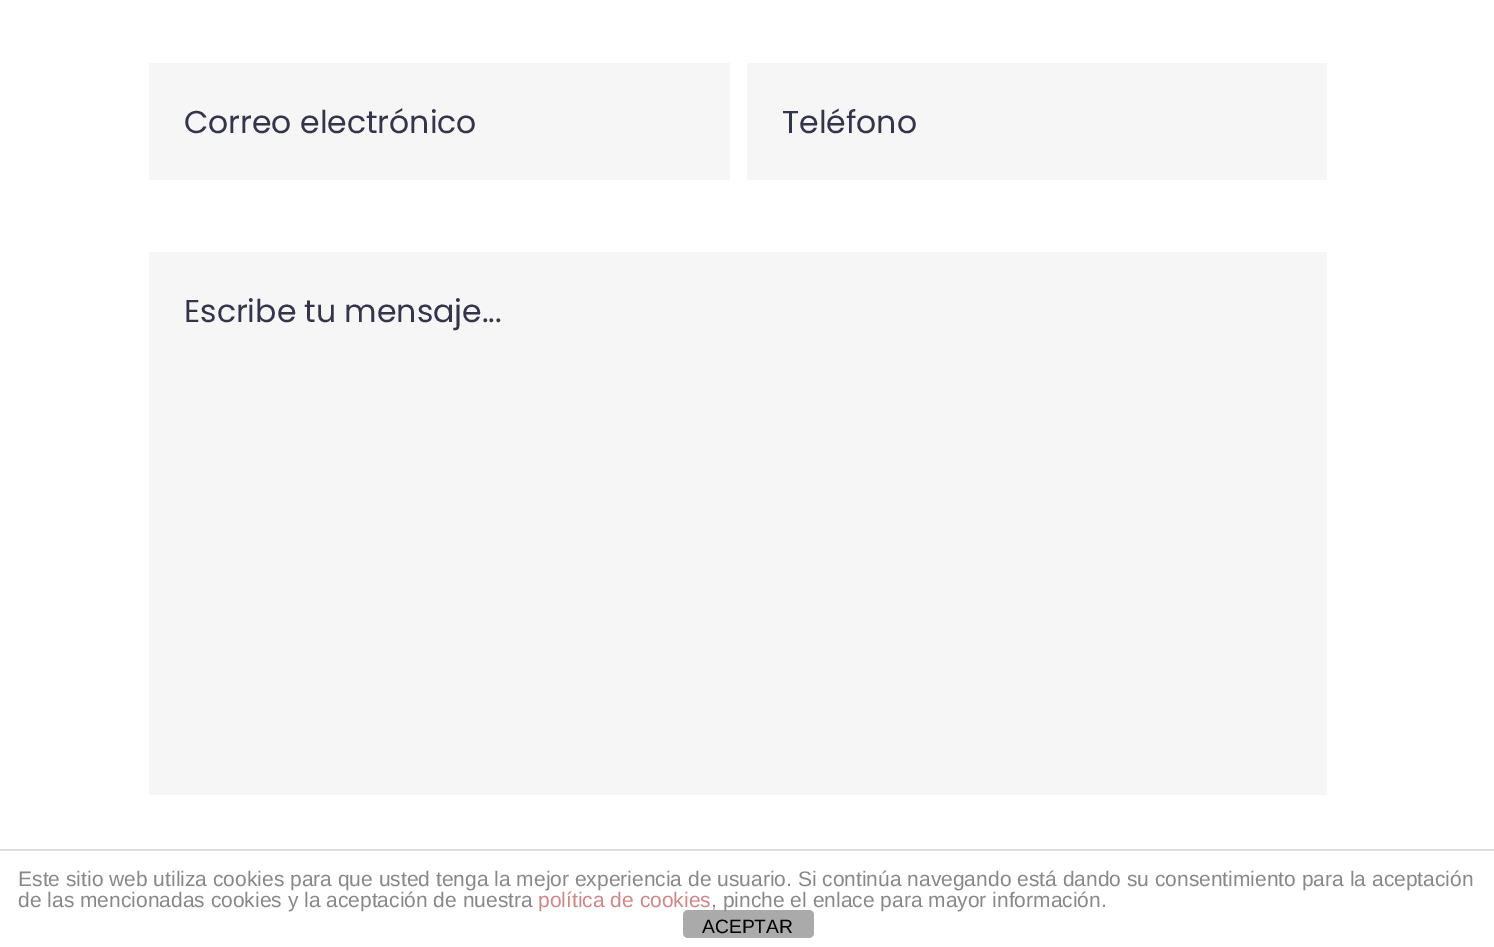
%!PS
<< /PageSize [1494 947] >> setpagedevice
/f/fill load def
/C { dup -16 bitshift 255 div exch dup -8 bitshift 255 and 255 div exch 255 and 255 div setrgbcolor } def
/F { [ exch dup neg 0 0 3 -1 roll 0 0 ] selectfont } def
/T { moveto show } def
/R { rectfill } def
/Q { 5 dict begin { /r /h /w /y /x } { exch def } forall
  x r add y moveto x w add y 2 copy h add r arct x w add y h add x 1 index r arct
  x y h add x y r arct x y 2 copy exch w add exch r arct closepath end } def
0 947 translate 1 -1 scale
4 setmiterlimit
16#FFFFFF C
0 0 1494 947 R
16#F6F6F6 C
149 63 581 117 R
/Poppins-Regular 31.5 F
16#34344A C
(Correo electrónico) 184 133 T
16#F6F6F6 C
747 63 580 117 R
16#34344A C
(Teléfono) 782 133 T
16#F6F6F6 C
149 252 1178 543 R
16#34344A C
(Escribe tu mensaje...) 184 322 T
16#DDDDDD C
0 849 1494 2 R
/LiberationSans-Regular 21 F
16#888888 C
(Este sitio web utiliza cookies para que usted tenga la mejor experiencia de usuario. Si continúa navegando está dando su consentimiento para la aceptación) 18 886 T
(de las mencionadas cookies y la aceptación de nuestra) 18 907 T
16#AAAAAA C
683 910 131 28 5 Q f
16#CC8888 C
(política de cookies) 538 907 T
16#888888 C
(, pinche el enlace para mayor información.) 711 907 T
/LiberationSans-Regular 19.25 F
16#000000 C
(ACEPTAR) 702 933 T
showpage
